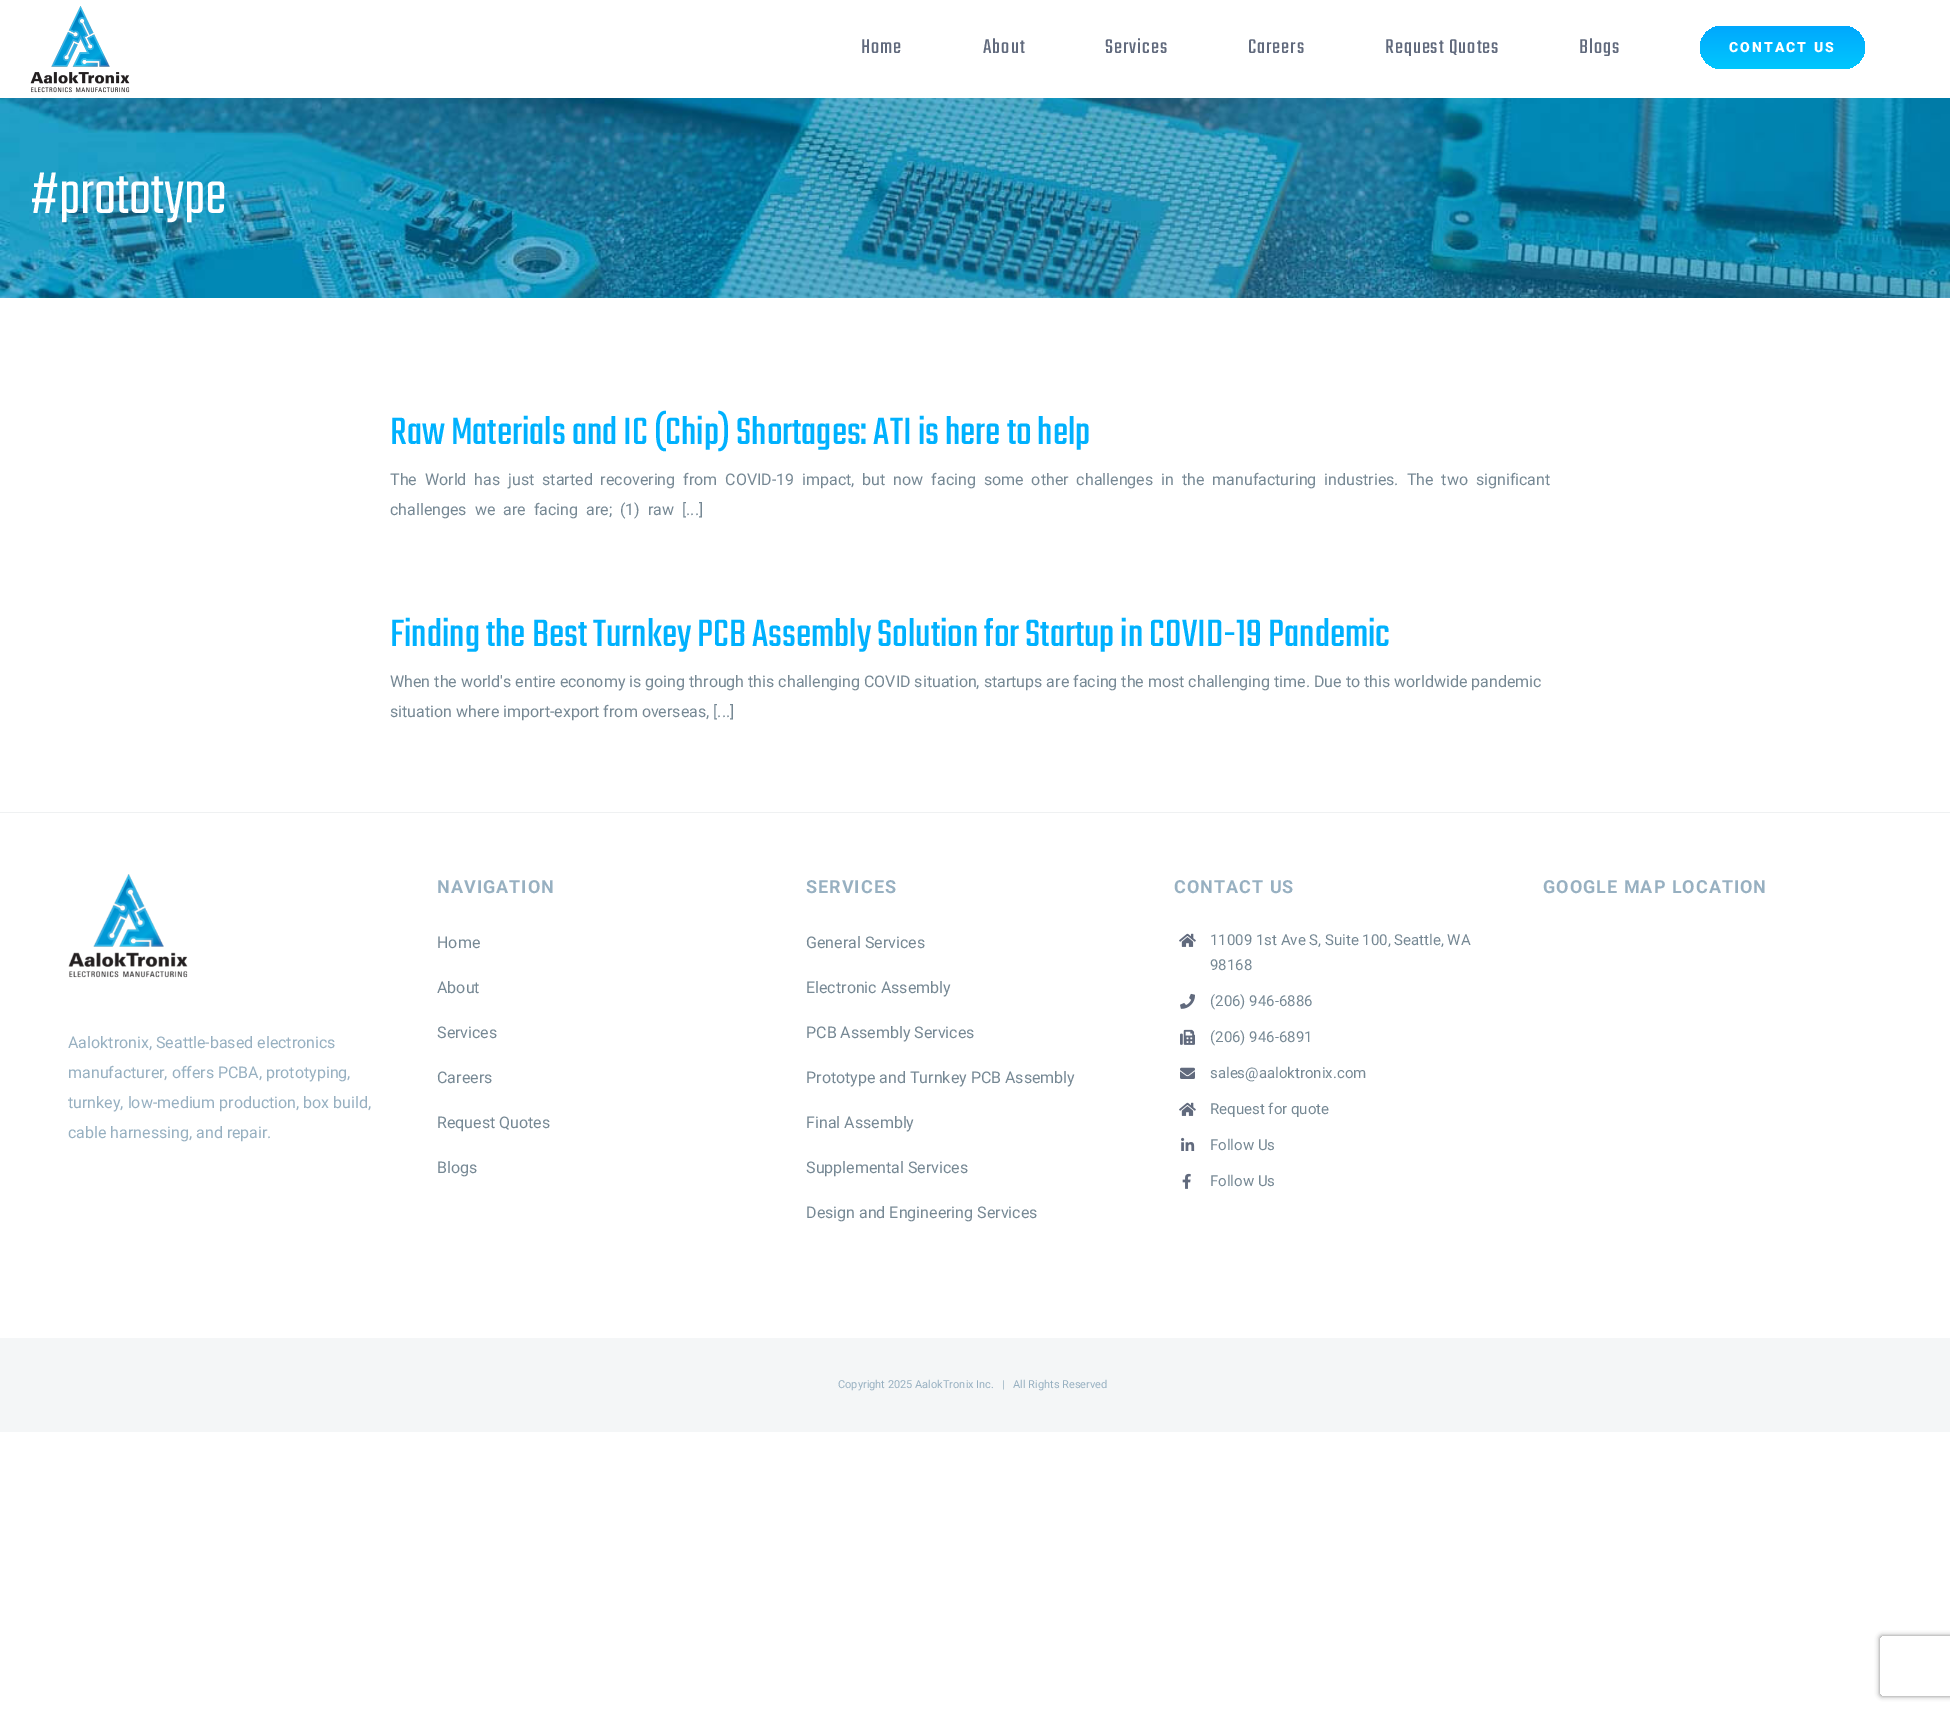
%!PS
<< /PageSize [1950 1710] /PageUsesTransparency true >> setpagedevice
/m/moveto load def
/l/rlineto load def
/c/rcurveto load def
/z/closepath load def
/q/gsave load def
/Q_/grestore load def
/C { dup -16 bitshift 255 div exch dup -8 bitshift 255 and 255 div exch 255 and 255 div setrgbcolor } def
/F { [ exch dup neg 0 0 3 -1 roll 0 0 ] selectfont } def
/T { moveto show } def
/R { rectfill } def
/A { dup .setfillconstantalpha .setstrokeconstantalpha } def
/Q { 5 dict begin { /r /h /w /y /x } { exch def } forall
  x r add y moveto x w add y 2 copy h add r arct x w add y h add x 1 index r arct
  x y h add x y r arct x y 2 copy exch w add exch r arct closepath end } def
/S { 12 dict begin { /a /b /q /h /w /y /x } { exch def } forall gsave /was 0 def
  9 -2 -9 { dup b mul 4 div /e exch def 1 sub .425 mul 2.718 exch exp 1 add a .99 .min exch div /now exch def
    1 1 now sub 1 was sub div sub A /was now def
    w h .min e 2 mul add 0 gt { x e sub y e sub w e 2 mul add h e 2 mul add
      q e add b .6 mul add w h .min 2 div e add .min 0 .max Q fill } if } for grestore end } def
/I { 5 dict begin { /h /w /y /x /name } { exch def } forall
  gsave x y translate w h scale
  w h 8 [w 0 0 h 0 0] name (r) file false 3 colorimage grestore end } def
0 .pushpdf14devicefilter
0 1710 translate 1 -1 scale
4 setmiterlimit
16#FFFFFF C
0 0 1950 1710 R
(1.rgb) 30 6 100 87 I
/Teko-Regular 22 F
16#616A7D C
861 53 m 1 0 (Home) ashow
983 53 m 1 0 (About) ashow
1105 53 m 1 0 (Services) ashow
1248 53 m 1 0 (Careers) ashow
1385 53 m 1 0 (Request Quotes) ashow
1579 53 m 1 0 (Blogs) ashow
q 1700 26 165 43 21.5 Q clip newpath
<< /ShadingType 2 /ColorSpace /DeviceRGB /Coords [1783 26 1783 69] /Extend [true true] /Function << /FunctionType 2 /Domain [0 1] /C0 [0 .659 .992] /C1 [0 .78 .992] /N 1 >> >> shfill Q_
/Roboto-Black 14 F
16#FFFFFF C
1729 52 m 2 0 (CONTACT US) ashow
(2.rgb) 0 98 1950 200 I
/Teko-Light 65 F
(#prototype) 30 213 T
/Teko-Regular 42 F
16#00B1FE C
(Raw Materials and IC \(Chip\) Shortages: ATI is here to help) 390 444 T
/Roboto-Regular 16 F
16#768894 C
(The  World  has  just  started  recovering  from  COVID-19  impact,  but  now  facing  some  other  challenges  in  the  manufacturing  industries.  The  two  significant) 390 485 T
(challenges  we  are  facing  are;  \(1\)  raw) 390 515 T
([...]) 682 515 T
/Teko-Regular 42 F
16#00B1FE C
(Finding the Best Turnkey PCB Assembly Solution for Startup in COVID-19 Pandemic) 390 646 T
/Roboto-Regular 16 F
16#768894 C
(When the world's entire economy is going through this challenging COVID situation, startups are facing the most challenging time. Due to this worldwide pandemic) 390 687 T
(situation where import-export from overseas, [...]) 390 717 T
16#EFF1F2 C
0 812 1950 1 R
/Roboto-Bold 18 F
16#97B0C1 C
437 893 m 1 0 (NAVIGATION) ashow
/Roboto-Regular 16 F
16#768894 C
(Home) 437 948 T
(About) 437 993 T
(Services) 437 1038 T
(Careers) 437 1083 T
(Request Quotes) 437 1128 T
(Blogs) 437 1173 T
/Roboto-Bold 18 F
16#97B0C1 C
806 893 m 1 0 (SERVICES) ashow
/Roboto-Regular 16 F
16#768894 C
(General Services) 806 948 T
(Electronic Assembly) 806 993 T
(PCB Assembly Services) 806 1038 T
(Prototype and Turnkey PCB Assembly) 806 1083 T
(Final Assembly) 806 1128 T
(Supplemental Services) 806 1173 T
(Design and Engineering Services) 806 1218 T
/Roboto-Bold 18 F
16#97B0C1 C
1174 893 m 1 0 (CONTACT US) ashow
(3.rgb) 1179 933 17 14 I
/Roboto-Regular 15 F
16#768894 C
(11009 1st Ave S, Suite 100, Seattle, WA) 1210 945 T
(98168) 1210 970 T
(4.rgb) 1180 993 15 16 I
(\(206\) 946-6886) 1210 1006 T
(5.rgb) 1180 1029 15 16 I
(\(206\) 946-6891) 1210 1042 T
(6.rgb) 1180 1067 15 12 I
(sales@aaloktronix.com) 1210 1078 T
(3.rgb) 1179 1102 17 14 I
(Request for quote) 1210 1114 T
(7.rgb) 1181 1137 14 14 I
(Follow Us) 1210 1150 T
(8.rgb) 1182 1173 9 16 I
(Follow Us) 1210 1186 T
/Roboto-Bold 18 F
16#97B0C1 C
1543 893 m 1 0 (GOOGLE MAP LOCATION) ashow
(9.rgb) 68 874 120 104 I
/Roboto-Regular 16 F
(Aaloktronix, Seattle-based electronics) 68 1048 T
(manufacturer, offers PCBA, prototyping,) 68 1078 T
(turnkey, low-medium production, box build,) 68 1108 T
(cable harnessing, and repair.) 68 1138 T
16#F4F6F7 C
0 1338 1950 94 R
/Roboto-Regular 11 F
16#97B0C1 C
(Copyright 2025 AalokTronix Inc.   |   All Rights Reserved) 838 1388 T
q
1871 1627 m 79 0 l 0 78 l -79 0 l z 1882 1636 m 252 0 l 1 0 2 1 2 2 c 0 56 l 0 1 -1 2 -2 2 c -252 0 l -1 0 -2 -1 -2 -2 c 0 -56 l 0 -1 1 -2 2 -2 c z eoclip newpath
16#808080 C
1880 1636 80 60 2 2.5 1 S
Q_
.poppdf14devicefilter showpage
